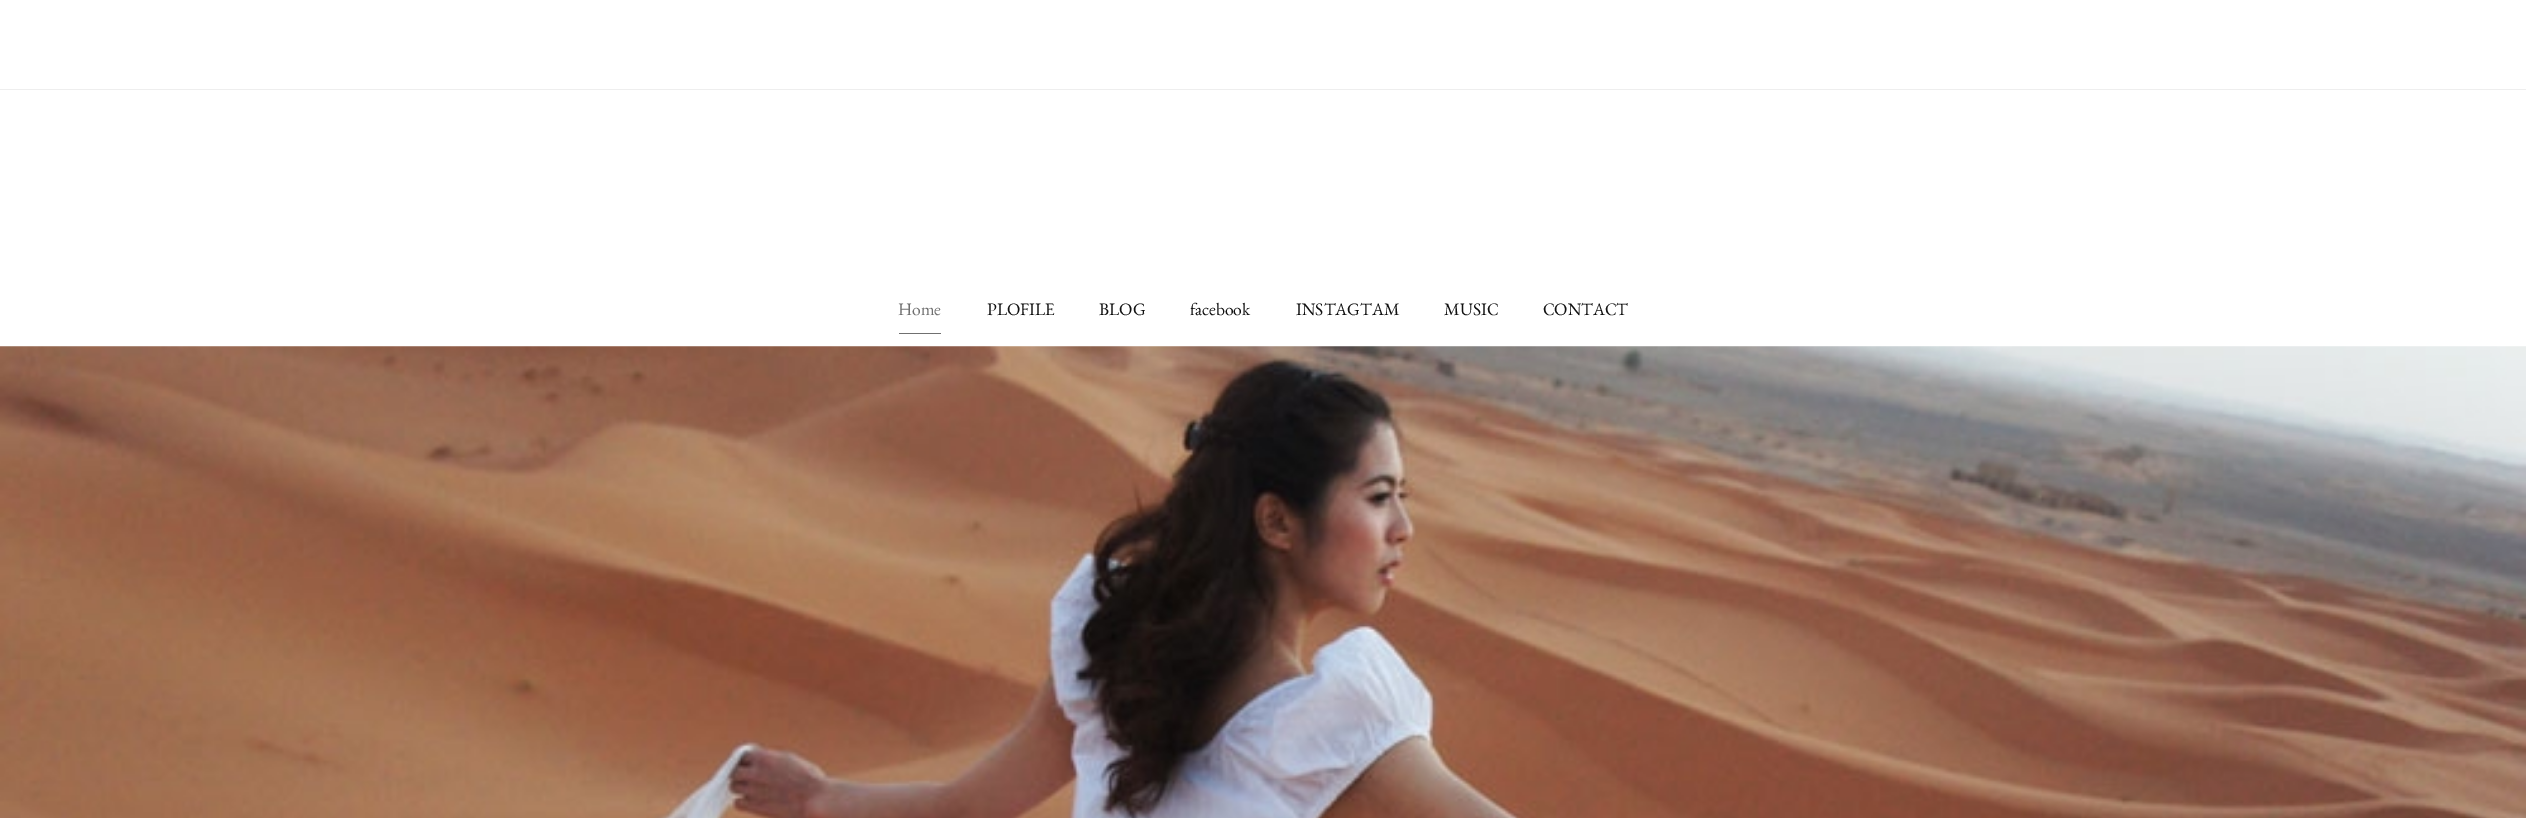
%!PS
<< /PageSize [2526 818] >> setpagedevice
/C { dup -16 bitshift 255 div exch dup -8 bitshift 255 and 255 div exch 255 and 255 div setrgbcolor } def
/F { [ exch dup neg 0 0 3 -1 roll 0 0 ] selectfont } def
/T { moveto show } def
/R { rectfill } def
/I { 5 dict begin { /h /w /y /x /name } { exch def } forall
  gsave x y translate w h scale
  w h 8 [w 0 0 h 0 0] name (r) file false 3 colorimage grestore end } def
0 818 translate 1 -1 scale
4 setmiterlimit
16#FFFFFF C
0 0 2526 818 R
16#EEEEEE C
0 89 2526 1 R
/EBGaramond-Regular 17.5 F
16#707070 C
(Home) 898 315 T
899 333 42 1 R
16#111111 C
(PLOFILE) 987 315 T
(BLOG) 1099 315 T
(facebook) 1190 315 T
(INSTAGTAM) 1296 315 T
(MUSIC) 1444 315 T
(CONTACT) 1543 315 T
(1.rgb) 0 346 2526 472 I
showpage
